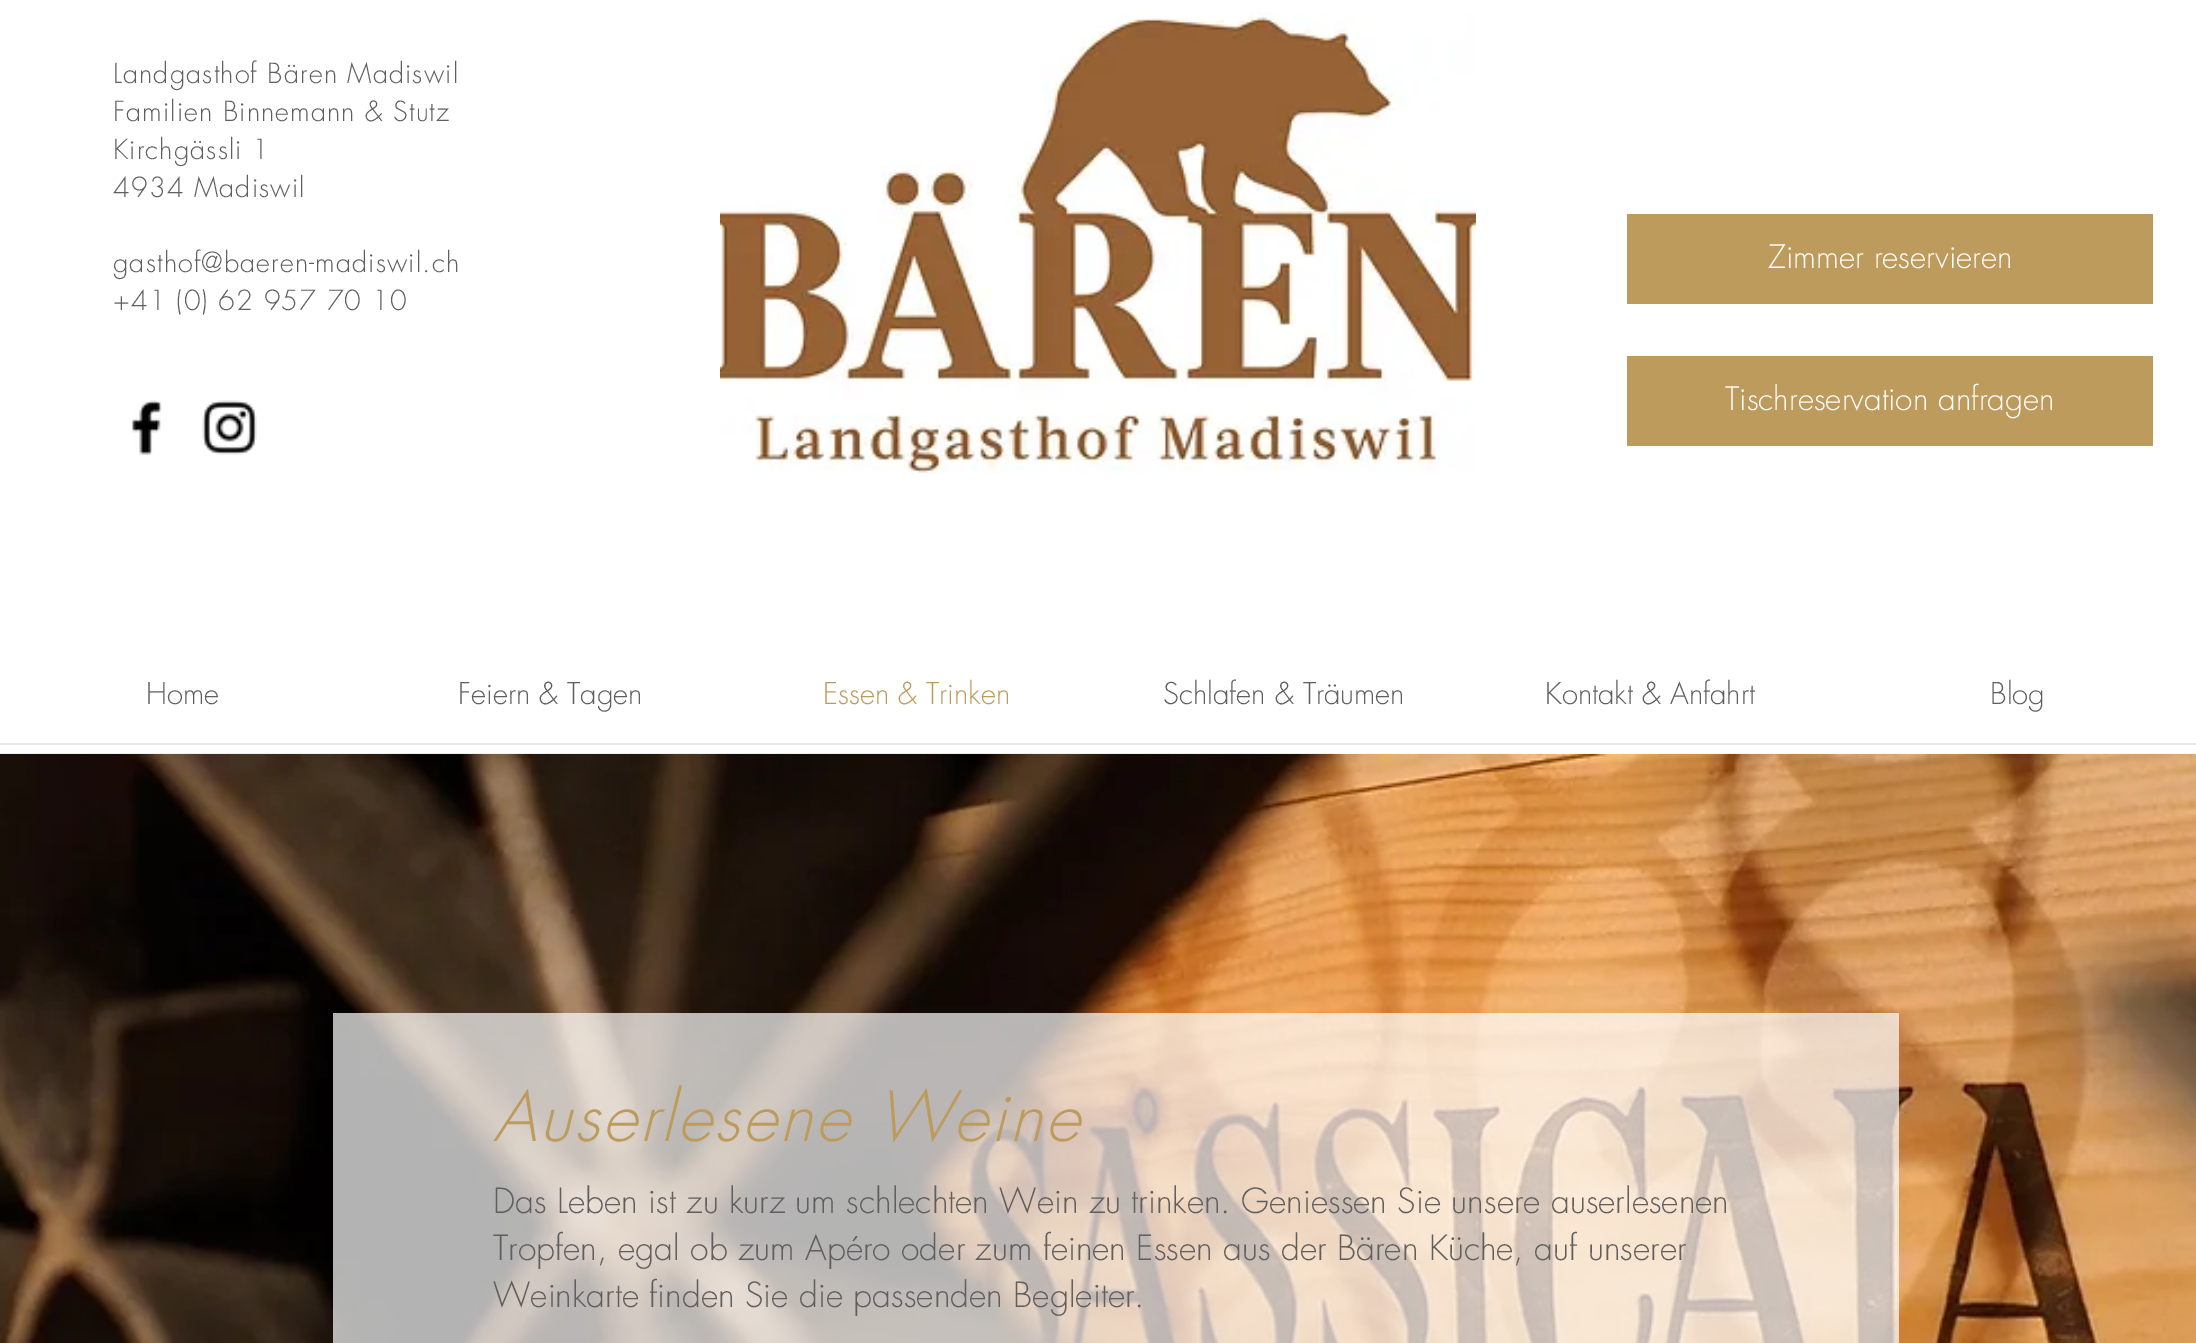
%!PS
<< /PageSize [2196 1343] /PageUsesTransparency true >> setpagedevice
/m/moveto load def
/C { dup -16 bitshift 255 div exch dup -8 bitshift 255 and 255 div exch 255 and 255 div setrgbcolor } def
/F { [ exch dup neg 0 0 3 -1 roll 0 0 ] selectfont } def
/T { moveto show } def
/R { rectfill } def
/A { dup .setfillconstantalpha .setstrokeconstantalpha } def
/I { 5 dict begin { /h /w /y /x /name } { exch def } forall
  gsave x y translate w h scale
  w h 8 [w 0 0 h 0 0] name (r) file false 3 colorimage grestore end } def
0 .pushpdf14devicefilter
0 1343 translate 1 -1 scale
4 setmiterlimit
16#FFFFFF C
0 0 2196 1343 R
/futura-Light 27 F
16#605E5E C
113 83 m 1.1 0 (Landgasthof Bären Madiswil) ashow
113 121 m 1.1 0 (Familien Binnemann & Stutz) ashow
113 159 m 1.1 0 (Kirchgässli 1) ashow
113 197 m 1.1 0 (4934 Madiswil) ashow
113 272 m 1.1 0 (gasthof@baeren-madiswil.ch) ashow
113 310 m 1.1 0 (+41 \(0\) 62 957 70 10) ashow
(1.rgb) 720 12 756 462 I
16#BC9B5D C
1627 214 526 90 R
/futura-Light 31.5 F
16#FFFFFF C
(Zimmer reservieren) 1768 268 T
(2.rgb) 132 400 30 55 I
(3.rgb) 202 400 55 55 I
16#BC9B5D C
1627 356 526 90 R
16#FFFFFF C
(Tischreservation anfragen) 1725 410 T
/futura-Light 29.25 F
16#605E5E C
(Home) 146 704 T
(Feiern & Tagen) 458 704 T
16#BC9B5D C
(Essen & Trinken) 823 704 T
16#605E5E C
(Schlafen & Träumen) 1163 704 T
(Kontakt & Anfahrt) 1545 704 T
(Blog) 1990 704 T
16#E9E9E9 C
0 743 2196 2 R
(4.rgb) 0 753 2196 590 I
0.7 A
16#FFFFFF C
333 1013 1566 330 R
/futura-LightItalic 67.5 F
1 A
16#BC9B5D C
493 1141 m 2.75 0 (Auserlesene Weine) ashow
/futura-Light 33.75 F
16#605E5E C
(Das Leben ist zu kurz um schlechten Wein zu trinken. Geniessen Sie unsere auserlesenen) 493 1213 T
(Tropfen, egal ob zum Apéro oder zum feinen Essen aus der Bären Küche, auf unserer) 493 1260 T
(Weinkarte finden Sie die passenden Begleiter.) 493 1307 T
.poppdf14devicefilter showpage
